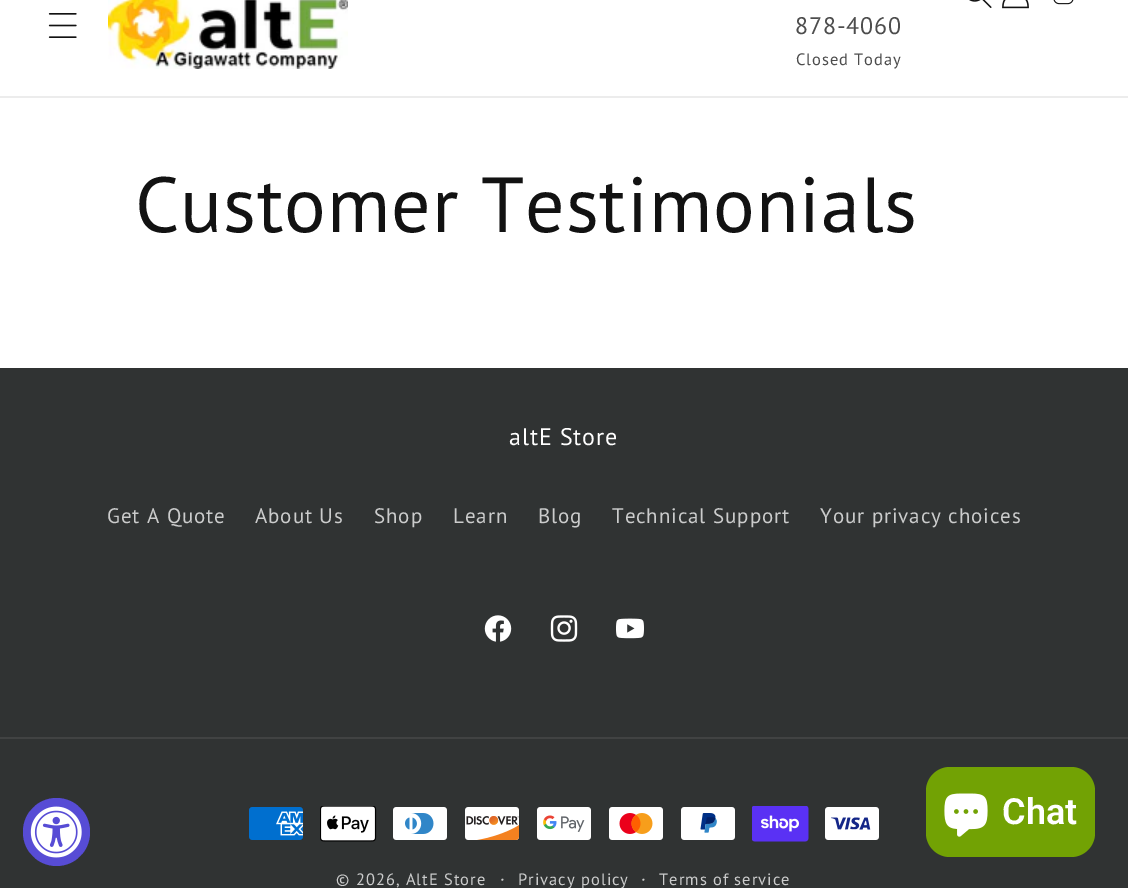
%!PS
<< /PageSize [1128 888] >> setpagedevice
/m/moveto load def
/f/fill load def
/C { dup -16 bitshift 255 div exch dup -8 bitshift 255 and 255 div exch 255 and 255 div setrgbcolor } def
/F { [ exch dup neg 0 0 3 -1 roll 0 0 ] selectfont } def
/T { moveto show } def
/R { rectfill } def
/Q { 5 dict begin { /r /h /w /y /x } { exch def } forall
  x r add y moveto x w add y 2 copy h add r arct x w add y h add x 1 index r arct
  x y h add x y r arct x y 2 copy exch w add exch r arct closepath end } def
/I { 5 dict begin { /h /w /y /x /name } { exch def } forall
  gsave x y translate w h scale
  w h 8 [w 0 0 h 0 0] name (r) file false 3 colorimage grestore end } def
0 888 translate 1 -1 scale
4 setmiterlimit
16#FFFFFF C
0 0 1128 888 R
16#ECECEC C
0 96 1128 2 R
(1.rgb) 48 13 29 25 I
(2.rgb) 108 0 240 69 I
(3.rgb) 969 0 23 8 I
(4.rgb) 1002 0 27 9 I
(5.rgb) 1053 0 21 5 I
/PTSans-Regular 24 F
16#4D4D4D C
795 34 m .9 0 (878-4060) ashow
/PTSans-Regular 16.5 F
796 65 m .9 0 (Closed Today) ashow
/PTSans-Regular 78 F
16#121212 C
135 232 m .9 0 (Customer Testimonials) ashow
16#303333 C
0 368 1128 520 R
16#574CD5 C
23 798 67 68 33.5 Q f
(6.rgb) 30 806 52 52 I
/PTSans-Regular 24 F
16#FFFFFF C
509 445 m .9 0 (altE Store) ashow
/PTSans-Regular 21 F
16#CBCCCC C
107 523 m .9 0 (Get A Quote) ashow
255 523 m .9 0 (About Us) ashow
374 523 m .9 0 (Shop) ashow
453 523 m .9 0 (Learn) ashow
538 523 m .9 0 (Blog) ashow
612 523 m .9 0 (Technical Support) ashow
820 523 m .9 0 (Your privacy choices) ashow
(7.rgb) 484 615 28 27 I
(8.rgb) 550 615 28 27 I
(9.rgb) 616 618 28 21 I
16#414343 C
0 737 1128 2 R
(10.rgb) 249 807 54 33 I
(11.rgb) 320 806 57 36 I
(12.rgb) 393 807 54 33 I
(13.rgb) 465 807 55 33 I
(14.rgb) 537 807 54 33 I
(15.rgb) 609 807 54 33 I
(16.rgb) 681 807 54 33 I
(17.rgb) 752 806 57 36 I
(18.rgb) 825 807 54 33 I
/PTSans-Regular 16.5 F
16#CBCCCC C
336 885 m 1 0 (© 2026, AltE Store) ashow
/PTSans-Regular 18 F
500 885 m 1 0 (·) ashow
/PTSans-Regular 16.5 F
518 885 m 1 0 (Privacy policy) ashow
/PTSans-Regular 18 F
641 885 m 1 0 (·) ashow
/PTSans-Regular 16.5 F
659 885 m 1 0 (Terms of service) ashow
16#72A204 C
926 767 169 90 24 Q f
(19.rgb) 944 793 44 44 I
/Roboto-SemiBold 36 F
16#FFFFFF C
(Chat) 1002 824 T
showpage
